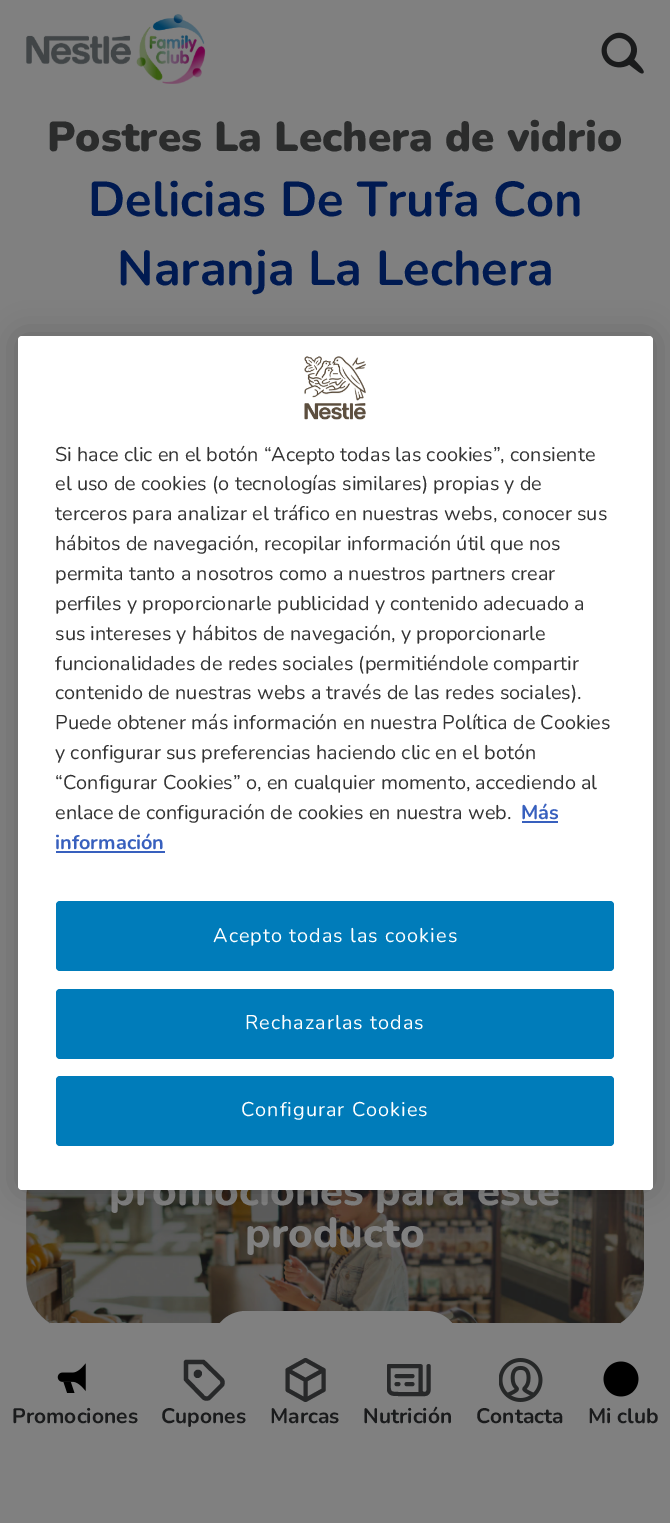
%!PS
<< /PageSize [670 1523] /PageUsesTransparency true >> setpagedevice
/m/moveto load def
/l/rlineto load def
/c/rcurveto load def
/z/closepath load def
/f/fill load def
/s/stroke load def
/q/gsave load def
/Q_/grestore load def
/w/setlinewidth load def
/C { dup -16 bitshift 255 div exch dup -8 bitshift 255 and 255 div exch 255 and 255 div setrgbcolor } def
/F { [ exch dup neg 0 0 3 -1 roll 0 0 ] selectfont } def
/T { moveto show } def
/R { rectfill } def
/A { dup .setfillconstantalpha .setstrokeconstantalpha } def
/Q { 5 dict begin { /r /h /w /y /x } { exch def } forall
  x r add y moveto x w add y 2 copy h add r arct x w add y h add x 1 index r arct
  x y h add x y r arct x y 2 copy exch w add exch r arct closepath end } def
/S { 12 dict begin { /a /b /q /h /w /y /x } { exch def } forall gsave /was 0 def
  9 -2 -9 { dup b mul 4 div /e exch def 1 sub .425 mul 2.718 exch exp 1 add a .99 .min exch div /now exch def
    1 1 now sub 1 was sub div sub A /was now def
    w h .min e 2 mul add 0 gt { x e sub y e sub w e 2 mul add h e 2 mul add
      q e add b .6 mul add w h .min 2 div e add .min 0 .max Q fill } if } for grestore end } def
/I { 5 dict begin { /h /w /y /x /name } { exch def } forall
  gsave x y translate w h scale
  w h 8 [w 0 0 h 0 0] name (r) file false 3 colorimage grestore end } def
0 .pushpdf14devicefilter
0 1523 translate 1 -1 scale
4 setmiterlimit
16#808080 C
0 0 670 1523 R
/Nunito-Black 42 F
16#2B2C2C C
(Postres La Lechera de vidrio) 47 151 T
/Nunito-Bold 49 F
16#001A51 C
(Delicias De Trufa Con) 88 216 T
(Naranja La Lechera) 117 285 T
16#656565 C
26 1146 618 186 53 Q f
(1.rgb) 26 1190 618 133 I
/Nunito-ExtraBold 42 F
16#808080 C
(promociones para este) 109 1205 T
(producto) 245 1247 T
246 1311 m 180 0 l 19 0 34 15 34 34 c 0 -13 l -248 0 l 0 13 l 0 -19 15 -34 34 -34 c z f
(2.rgb) 26 14 180 70 I
(3.rgb) 601 32 43 42 I
50 1323 570 9 R
(4.rgb) 57 1363 29 30 I
/Nunito-Bold 21 F
16#1A1B1C C
(Promociones) 12 1423 T
16#272829 C
4.2 w
1 setlinecap
1 setlinejoin
199.5 1372.5 m 1.5 1.5 -1.5 4.5 -3 3 c -2 -2 1 -5 3 -3 c z 186 1379.5 m 0 -17.5 l 17.5 0 l 18 17.5 l 1.5 2 1.5 4.5 0 6 c -12 12 l -1.5 1.5 -4 1.5 -6 0 c z s
16#1A1B1C C
(Cupones) 161 1423 T
16#272829 C
4 w
305.5 1360 m 18 10 l 0 20 l -18 10 l -18 -10 l 0 -20 l z 287.5 1370 m 18 10 l 18 -10 l 305.5 1380 m 0 20 l s
16#1A1B1C C
(Marcas) 270 1423 T
q
387 1358 44 44 rectclip
16#272829 C
428.5 1366 m 0 24 l 0 2.5 -1.5 4 -4 4 c -2.5 0 -4 -1.5 -4 -4 c 0 -24 l -32 0 l 0 18 l 0 9.5 1.5 10 10.5 10 c 25.5 0 l 396.5 1384 m 2 0 l 406.5 1384 m 6 0 l 396.5 1376 m 16 0 l s
Q_
(Nutrición) 363 1423 T
(5.rgb) 499 1358 44 44 I
(Contacta) 476 1423 T
(6.rgb) 603 1361 36 36 I
(Mi club) 588 1423 T
16#000000 C
18 336 635 854 4 16 .2 S
16#FFFFFF C
18 336 635 854 4 Q f
(7.rgb) 304 356 62 64 I
/Nunito-Regular 19.9 F
16#333333 C
(Si hace clic en el botón “Acepto todas las cookies”, consiente) 55 461 T
(el uso de cookies \(o tecnologías similares\) propias y de) 55 490 T
(terceros para analizar el tráfico en nuestras webs, conocer sus) 55 520 T
(hábitos de navegación, recopilar información útil que nos) 55 550 T
(permita tanto a nosotros como a nuestros partners crear) 55 580 T
(perfiles y proporcionarle publicidad y contenido adecuado a) 55 610 T
(sus intereses y hábitos de navegación, y proporcionarle) 55 640 T
(funcionalidades de redes sociales \(permitiéndole compartir) 55 670 T
(contenido de nuestras webs a través de las redes sociales\).) 55 699 T
(Puede obtener más información en nuestra Política de Cookies) 55 729 T
(y configurar sus preferencias haciendo clic en el botón) 55 759 T
(“Configurar Cookies” o, en cualquier momento, accediendo al) 55 789 T
(enlace de configuración de cookies en nuestra web.) 55 819 T
/Nunito-Bold 19.9 F
16#3860BE C
(Más) 521 819 T
522 821 36 2 R
(información) 55 849 T
56 851 109 2 R
16#007CBA C
56 901 558 70 4 Q f
/Nunito-Regular 19.9 F
16#FFFFFF C
213 942 m 1 0 (Acepto todas las cookies) ashow
16#007CBA C
56 989 558 70 4 Q f
16#FFFFFF C
245 1029 m 1 0 (Rechazarlas todas) ashow
16#007CBA C
56 1076 558 70 4 Q f
16#FFFFFF C
241 1116 m 1 0 (Configurar Cookies) ashow
.poppdf14devicefilter showpage
